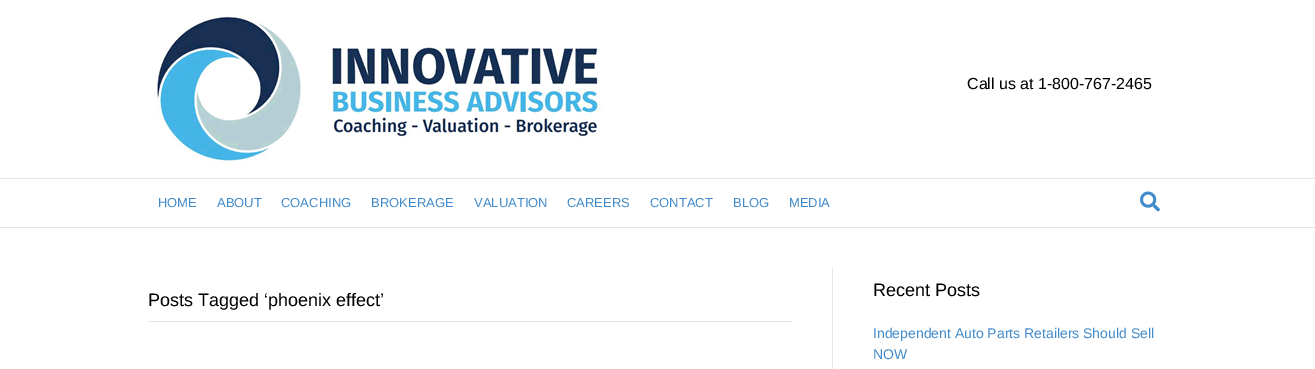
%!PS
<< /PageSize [1315 369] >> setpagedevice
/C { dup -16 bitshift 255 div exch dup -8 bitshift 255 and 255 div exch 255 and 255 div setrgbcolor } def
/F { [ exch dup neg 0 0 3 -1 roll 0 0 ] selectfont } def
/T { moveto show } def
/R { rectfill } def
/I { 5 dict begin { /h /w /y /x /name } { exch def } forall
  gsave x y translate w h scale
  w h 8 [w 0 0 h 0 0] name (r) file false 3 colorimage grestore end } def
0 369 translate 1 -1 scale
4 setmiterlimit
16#FFFFFF C
0 0 1315 369 R
(1.rgb) 155 14 449 150 I
/LiberationSans-Regular 16 F
16#000000 C
(Call us at 1-800-767-2465) 967 89 T
16#E6E6E6 C
0 178 1315 1 R
0 227 1315 1 R
/LiberationSans-Regular 13 F
16#428BCA C
(HOME) 158 207 T
(ABOUT) 217 207 T
(COACHING) 281 207 T
(BROKERAGE) 371 207 T
(VALUATION) 474 207 T
(CAREERS) 567 207 T
(CONTACT) 650 207 T
(BLOG) 733 207 T
(MEDIA) 789 207 T
(2.rgb) 1140 191 20 21 I
16#E6E6E6 C
832 268 1 101 R
148 321 644 1 R
/LiberationSans-Regular 18 F
16#000000 C
(Posts Tagged ‘phoenix effect’) 148 306 T
(Recent Posts) 873 296 T
/LiberationSans-Regular 14 F
16#428BCA C
(Independent Auto Parts Retailers Should Sell) 873 338 T
(NOW) 873 359 T
showpage
